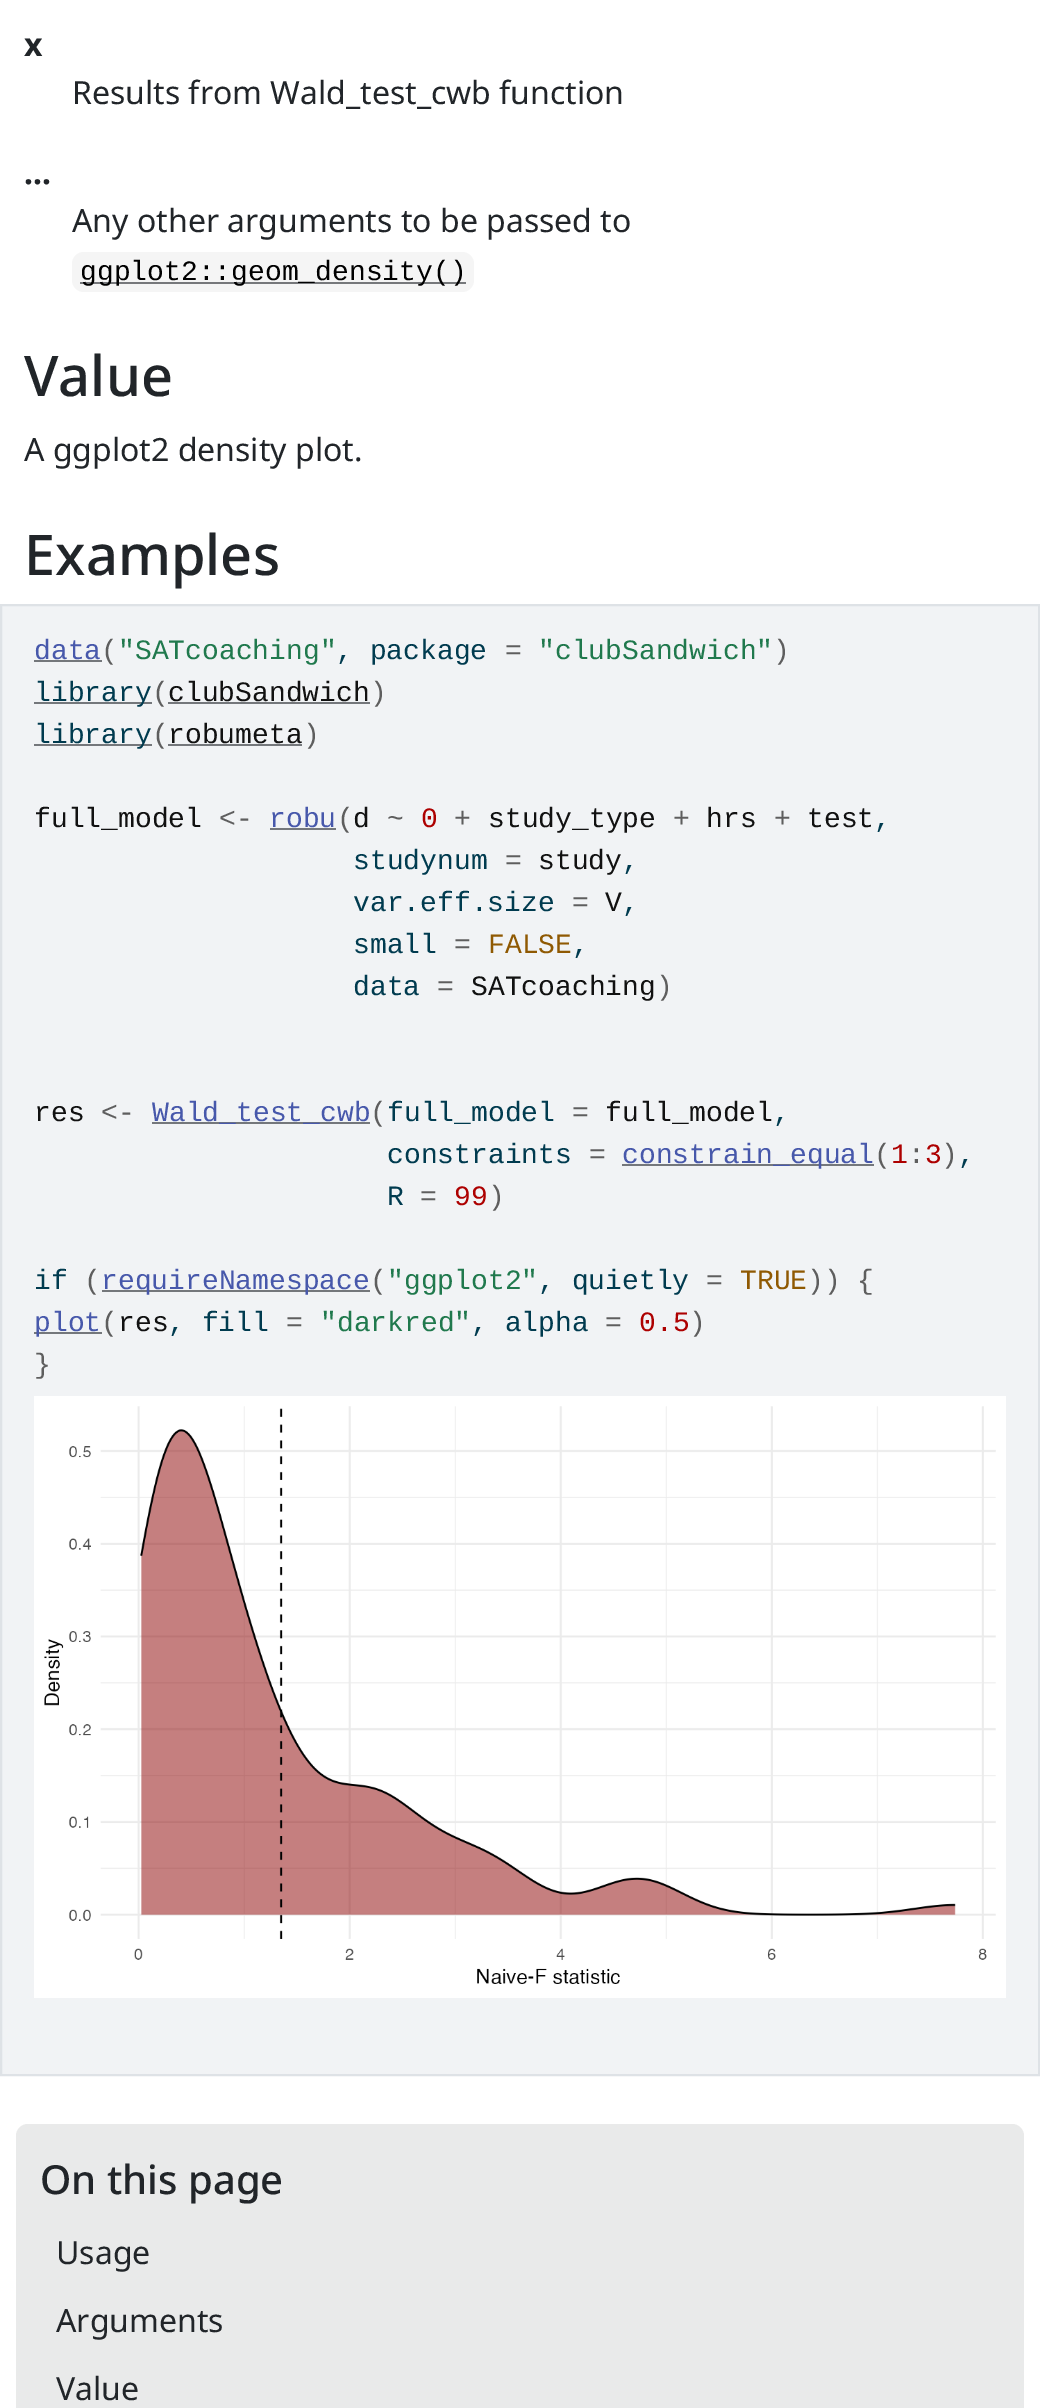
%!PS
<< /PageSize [1040 2408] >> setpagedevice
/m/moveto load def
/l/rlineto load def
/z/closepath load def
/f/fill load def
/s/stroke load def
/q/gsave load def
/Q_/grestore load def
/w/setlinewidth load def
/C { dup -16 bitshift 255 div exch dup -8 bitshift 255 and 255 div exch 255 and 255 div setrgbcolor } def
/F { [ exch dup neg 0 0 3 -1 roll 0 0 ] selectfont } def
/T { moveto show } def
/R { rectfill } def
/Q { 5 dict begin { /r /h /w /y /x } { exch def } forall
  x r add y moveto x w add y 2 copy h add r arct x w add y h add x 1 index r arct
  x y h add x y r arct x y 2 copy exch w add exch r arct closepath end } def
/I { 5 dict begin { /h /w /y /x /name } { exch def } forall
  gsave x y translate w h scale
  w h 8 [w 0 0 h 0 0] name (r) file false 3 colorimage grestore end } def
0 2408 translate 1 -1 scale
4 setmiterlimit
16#FFFFFF C
0 0 1040 2408 R
/NotoSans-Bold 32 F
16#212529 C
(x) 24 56 T
/NotoSans-Regular 32 F
(Results from Wald_test_cwb function) 72 104 T
/NotoSans-Bold 32 F
(...) 24 184 T
/NotoSans-Regular 32 F
(Any other arguments to be passed to) 72 232 T
16#F5F5F5 C
72 252 402 40 12 Q f
16#76787B C
80 282 386 2 R
/LiberationMono-Regular 28 F
16#000000 C
(ggplot2::geom_density\(\)) 80 280 T
/NotoSans-Medium 56 F
16#212529 C
(Value) 24 396 T
/NotoSans-Regular 32 F
(A ggplot2 density plot.) 24 461 T
/NotoSans-Medium 56 F
(Examples) 24 575 T
16#F1F3F5 C
1 605 m 1038 0 l 0 1470 l -1038 0 l z q f Q_
16#DEE2E6 C
2 w
s
/LiberationMono-Regular 28 F
16#4758AB C
(data) 34 659 T
16#5E5E5E C
(\() 101 659 T
16#74777B C
34 660 68 2 R
16#20794D C
("SATcoaching") 118 659 T
16#003B4F C
(, package) 336 659 T
16#5E5E5E C
(=) 505 659 T
16#20794D C
("clubSandwich") 538 659 T
16#5E5E5E C
(\)) 773 659 T
16#74777B C
34 702 118 2 R
16#003B4F C
(library) 34 701 T
16#5E5E5E C
(\() 152 701 T
16#74777B C
168 702 202 2 R
16#111111 C
(clubSandwich) 168 701 T
16#5E5E5E C
(\)) 370 701 T
16#74777B C
34 744 118 2 R
16#003B4F C
(library) 34 743 T
16#5E5E5E C
(\() 152 743 T
16#74777B C
168 744 134 2 R
16#111111 C
(robumeta) 168 743 T
16#5E5E5E C
(\)) 303 743 T
16#111111 C
(full_model) 34 827 T
16#5E5E5E C
(<-) 219 827 T
16#4758AB C
(robu) 269 827 T
16#74777B C
270 828 66 2 R
16#5E5E5E C
(\() 337 827 T
16#111111 C
(d) 353 827 T
16#5E5E5E C
(~) 387 827 T
16#AD0000 C
(0) 421 827 T
16#5E5E5E C
(+) 454 827 T
16#111111 C
(study_type) 488 827 T
16#5E5E5E C
(+) 673 827 T
16#111111 C
(hrs) 706 827 T
16#5E5E5E C
(+) 774 827 T
16#111111 C
(test) 807 827 T
16#003B4F C
(,) 874 827 T
(studynum) 353 869 T
16#5E5E5E C
(=) 505 869 T
16#111111 C
(study) 538 869 T
16#003B4F C
(,) 622 869 T
(var.eff.size) 353 911 T
16#5E5E5E C
(=) 572 911 T
16#111111 C
(V) 605 911 T
16#003B4F C
(,) 622 911 T
(small) 353 953 T
16#5E5E5E C
(=) 454 953 T
16#8F5902 C
(FALSE) 488 953 T
16#003B4F C
(,) 572 953 T
(data) 353 995 T
16#5E5E5E C
(=) 437 995 T
16#111111 C
(SATcoaching) 471 995 T
16#5E5E5E C
(\)) 656 995 T
16#111111 C
(res) 34 1121 T
16#5E5E5E C
(<-) 101 1121 T
16#74777B C
152 1122 218 2 R
16#4758AB C
(Wald_test_cwb) 152 1121 T
16#5E5E5E C
(\() 370 1121 T
16#003B4F C
(full_model) 387 1121 T
16#5E5E5E C
(=) 572 1121 T
16#111111 C
(full_model) 605 1121 T
16#003B4F C
(,) 773 1121 T
(constraints) 387 1163 T
16#74777B C
622 1164 252 2 R
16#4758AB C
(constrain_equal) 622 1163 T
16#5E5E5E C
(\( : \)) 874 1163 T
(=) 589 1163 T
16#AD0000 C
(1 3) 891 1163 T
16#003B4F C
(,) 958 1163 T
(R) 387 1205 T
16#5E5E5E C
(=) 420 1205 T
16#AD0000 C
(99) 454 1205 T
16#5E5E5E C
(\)) 488 1205 T
16#003B4F C
(if) 34 1289 T
16#5E5E5E C
(\() 84 1289 T
16#74777B C
102 1290 268 2 R
16#4758AB C
(requireNamespace) 101 1289 T
16#5E5E5E C
(\() 370 1289 T
16#20794D C
("ggplot2") 387 1289 T
16#003B4F C
(, quietly) 538 1289 T
16#5E5E5E C
(=) 706 1289 T
16#8F5902 C
(TRUE) 740 1289 T
16#5E5E5E C
(\)\) {) 807 1289 T
16#74777B C
34 1332 68 2 R
16#4758AB C
(plot) 34 1331 T
16#5E5E5E C
(\() 101 1331 T
16#111111 C
(res) 118 1331 T
16#003B4F C
(, fill) 168 1331 T
16#5E5E5E C
(=) 286 1331 T
16#20794D C
("darkred") 320 1331 T
16#003B4F C
(, alpha) 471 1331 T
16#5E5E5E C
(=) 605 1331 T
16#AD0000 C
(0.5) 639 1331 T
16#5E5E5E C
(\)) 689 1331 T
(}) 34 1373 T
16#FFFFFF C
34 1396 972 602 R
(1.rgb) 44 1406 952 578 I
16#E9EAEA C
16 2124 1008 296 12 Q f
/NotoSans-Medium 40 F
16#212529 C
(On this page) 40 2194 T
/NotoSans-Regular 32 F
(Usage) 56 2264 T
(Arguments) 56 2332 T
(Value) 56 2400 T
showpage
